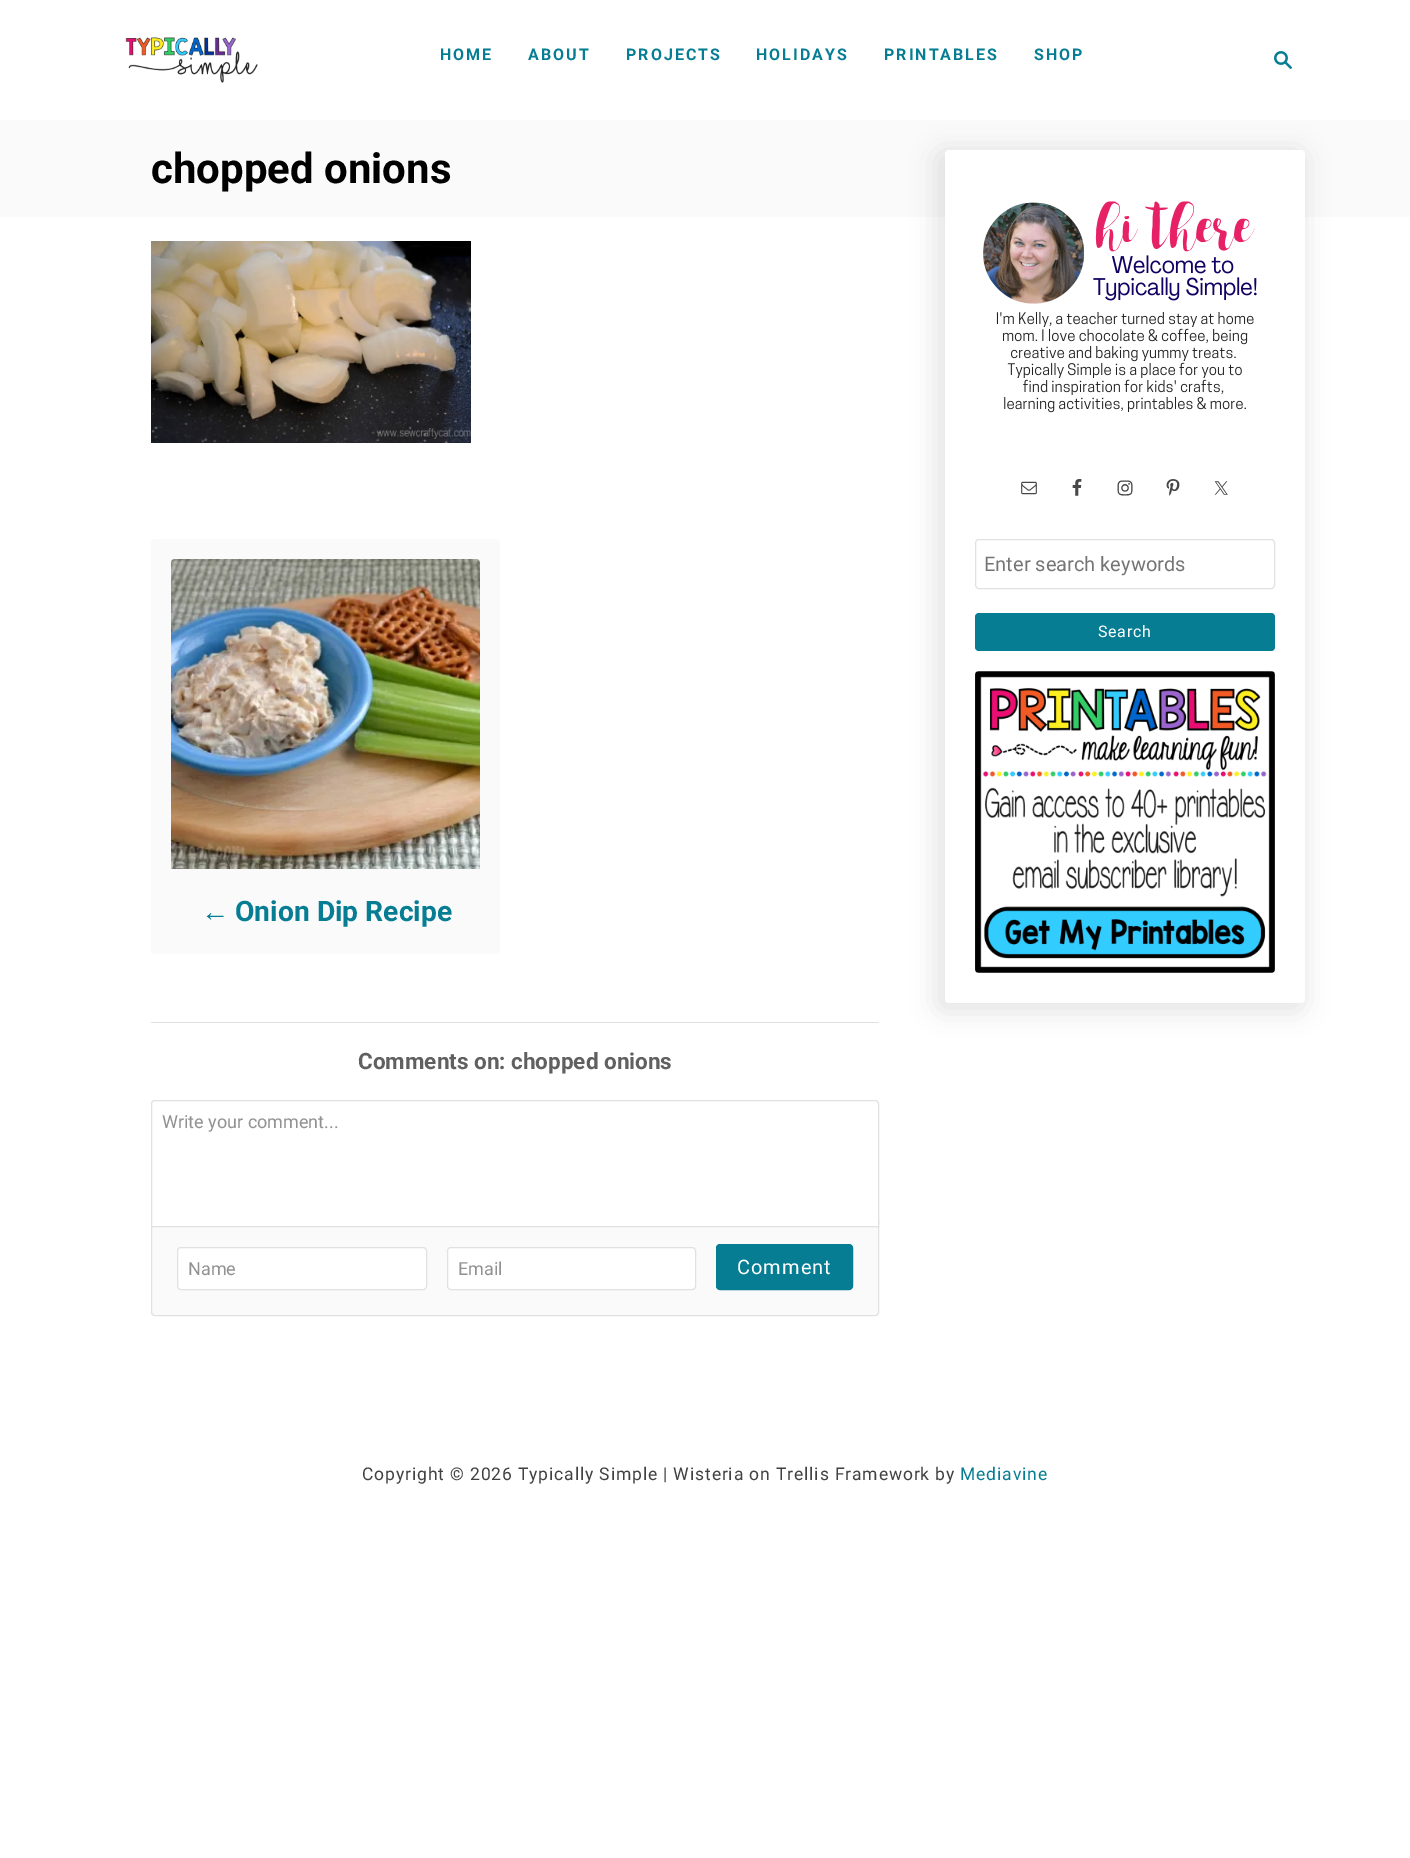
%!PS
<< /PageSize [1410 1858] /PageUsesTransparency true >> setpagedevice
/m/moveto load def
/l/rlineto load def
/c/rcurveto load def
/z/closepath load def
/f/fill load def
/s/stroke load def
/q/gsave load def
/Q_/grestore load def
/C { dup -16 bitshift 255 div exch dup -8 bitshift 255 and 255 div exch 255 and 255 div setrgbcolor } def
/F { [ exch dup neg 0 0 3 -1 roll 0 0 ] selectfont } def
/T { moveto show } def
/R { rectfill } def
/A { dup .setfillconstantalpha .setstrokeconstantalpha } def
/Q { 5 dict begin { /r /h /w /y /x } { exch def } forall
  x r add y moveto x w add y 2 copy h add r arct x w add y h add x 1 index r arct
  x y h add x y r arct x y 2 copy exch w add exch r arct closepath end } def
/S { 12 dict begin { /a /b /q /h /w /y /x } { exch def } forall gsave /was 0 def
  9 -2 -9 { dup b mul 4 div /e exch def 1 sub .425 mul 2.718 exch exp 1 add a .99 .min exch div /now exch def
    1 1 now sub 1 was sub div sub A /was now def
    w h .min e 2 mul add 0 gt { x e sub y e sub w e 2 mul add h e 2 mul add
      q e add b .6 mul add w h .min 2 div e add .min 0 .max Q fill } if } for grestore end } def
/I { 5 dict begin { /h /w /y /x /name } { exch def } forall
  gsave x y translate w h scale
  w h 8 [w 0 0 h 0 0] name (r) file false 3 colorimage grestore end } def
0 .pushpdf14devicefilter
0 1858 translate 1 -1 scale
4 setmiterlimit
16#FFFFFF C
0 0 1410 1858 R
(1.rgb) 125 37 133 46 I
/Roboto-Bold 16 F
16#067D93 C
440 60 m 2 0 (HOME) ashow
528 60 m 2 0 (ABOUT) ashow
626 60 m 2 0 (PROJECTS) ashow
756 60 m 2 0 (HOLIDAYS) ashow
884 60 m 2 0 (PRINTABLES) ashow
1034 60 m 2 0 (SHOP) ashow
(2.rgb) 1274 51 18 18 I
16#FAFAFA C
0 120 1410 97 R
/Roboto-Bold 42 F
16#000000 C
(chopped onions) 151 183 T
(3.rgb) 151 241 320 202 I
16#FAFAFA C
151 539 349 415 4 Q f
(4.rgb) 171 559 309 310 I
/LiberationSans-Bold 28.25 F
16#067D93 C
(←) 201 921 T
/Roboto-Bold 28.25 F
(Onion Dip Recipe) 235 921 T
16#E1E1E1 C
151 1022 728 1 R
/Roboto-Bold 22.5 F
16#606060 C
(Comments on: chopped onions) 358 1069 T
16#FAFAFA C
151.5 1218.5 m 727 0 l 0 93.5 l 0 2 -1.5 3.5 -3.5 3.5 c -720 0 l -2 0 -3.5 -1.5 -3.5 -3.5 c z q f Q_
16#E1E1E1 C
s
16#FFFFFF C
155 1100.5 m 720 0 l 2 0 3.5 1.5 3.5 3.5 c 0 122.5 l -727 0 l 0 -122.5 l 0 -2 1.5 -3.5 3.5 -3.5 c z q f Q_
16#E1E1E1 C
s
/Roboto-Regular 18 F
16#919191 C
(Write your comment...) 162 1128 T
16#FFFFFF C
177.5 1247.5 249 42 3.5 Q q f Q_
16#E1E1E1 C
s
16#919191 C
(Name) 188 1275 T
16#FFFFFF C
447.5 1247.5 248 42 3.5 Q q f Q_
16#E1E1E1 C
s
16#919191 C
(Email) 458 1275 T
16#067D93 C
716.5 1244.5 136 45 3.5 Q q f Q_
s
/Roboto-Regular 20 F
16#FFFFFF C
737 1274 m 1 0 (Comment) ashow
16#000000 C
935 150 370 863 9 12.5 .1 S
16#FFFFFF C
945 150 360 853 4 Q f
(5.rgb) 983 201 274 212 I
(6.rgb) 1021 481 16 14 I
(7.rgb) 1072 479 10 17 I
(8.rgb) 1117 480 16 16 I
(9.rgb) 1166 479 14 17 I
(10.rgb) 1214 481 14 14 I
16#E1E1E1 C
975.5 539.5 299 49 3.5 Q s
16#757575 C
(Enter search keywords) 984 571 T
16#067D93 C
975 613 300 38 4 Q f
/Roboto-Regular 16 F
16#FFFFFF C
1098 637 m .75 0 (Search) ashow
(11.rgb) 975 671 300 302 I
/Roboto-Regular 17.5 F
16#414141 C
362 1480 m .88 0 (Copyright © 2026 Typically Simple | Wisteria on Trellis Framework by) ashow
16#067D93 C
960 1480 m .88 0 (Mediavine) ashow
.poppdf14devicefilter showpage
